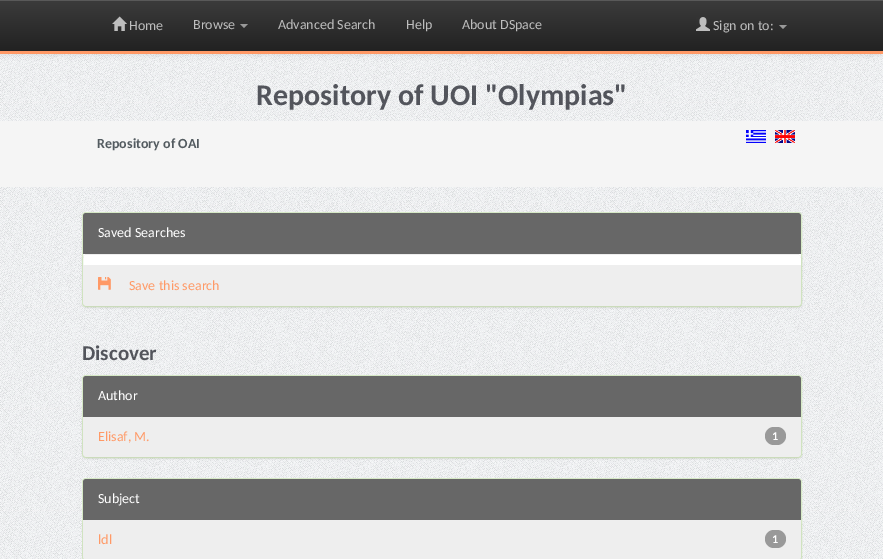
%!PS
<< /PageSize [883 559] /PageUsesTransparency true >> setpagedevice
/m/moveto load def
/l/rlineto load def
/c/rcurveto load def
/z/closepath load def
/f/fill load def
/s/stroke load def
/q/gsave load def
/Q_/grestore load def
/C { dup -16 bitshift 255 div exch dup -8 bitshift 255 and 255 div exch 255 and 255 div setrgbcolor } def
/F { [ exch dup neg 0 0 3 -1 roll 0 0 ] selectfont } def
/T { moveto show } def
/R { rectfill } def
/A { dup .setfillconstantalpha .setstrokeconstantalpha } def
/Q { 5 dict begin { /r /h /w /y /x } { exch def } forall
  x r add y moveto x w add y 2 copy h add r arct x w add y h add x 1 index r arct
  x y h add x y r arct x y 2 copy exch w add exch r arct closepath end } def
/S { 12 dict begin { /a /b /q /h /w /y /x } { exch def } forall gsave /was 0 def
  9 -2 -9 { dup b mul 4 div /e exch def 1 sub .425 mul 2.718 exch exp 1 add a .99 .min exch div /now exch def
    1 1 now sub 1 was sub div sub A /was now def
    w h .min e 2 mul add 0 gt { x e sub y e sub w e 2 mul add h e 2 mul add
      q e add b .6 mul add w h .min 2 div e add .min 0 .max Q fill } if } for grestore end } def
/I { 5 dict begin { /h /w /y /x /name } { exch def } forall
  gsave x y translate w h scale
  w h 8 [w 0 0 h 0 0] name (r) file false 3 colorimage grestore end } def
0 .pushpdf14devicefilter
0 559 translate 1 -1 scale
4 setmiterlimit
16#FFFFFF C
0 0 883 559 R
(1.rgb) 0 54 883 505 I
16#000000 C
0 1 883 54 0 2.5 .07 S
q 0 1 m 883 0 l 0 50 l -883 0 l z clip newpath
<< /ShadingType 2 /ColorSpace /DeviceRGB /Coords [442 0 442 51] /Extend [true true] /Function << /FunctionType 2 /Domain [0 1] /C0 [.235 .235 .235] /C1 [.133 .133 .133] /N 1 >> >> shfill Q_
16#595959 C
0 0 883 1 R
16#FF9966 C
0 51 883 3 R
(2.rgb) 112 16 15 15 I
/Carlito-Regular 14 F
16#BEBEBE C
(Home) 129 30 T
(Browse) 193 29 T
16#999999 C
240 24 m 8 0 l -4 4 l z f
16#BEBEBE C
(Advanced Search) 278 29 T
(Help) 406 29 T
(About DSpace) 462 29 T
(3.rgb) 696 17 14 14 I
(Sign on to:) 713 30 T
16#999999 C
779 25 m 8 0 l -4 4 l z f
/Carlito-Bold 30 F
16#53555C C
(Repository of UOI "Olympias") 256 105 T
16#F5F5F5 C
0 121 883 66 R
(4.rgb) 746 130 20 13 I
(5.rgb) 775 130 20 13 I
/Carlito-Bold 14 F
16#535B60 C
(Repository of OAI) 97 148 T
16#000000 C
82 213 720 95 4 1 .05 S
16#FFFFFF C
82.5 212.5 719 94 3.5 Q q f Q_
16#D6E9C6 C
s
16#676767 C
86 213 m 712 0 l 1.5 0 3 1.5 3 3 c 0 38 l -718 0 l 0 -38 l 0 -1.5 1.5 -3 3 -3 c z f
/Carlito-Regular 14 F
16#FFFFFF C
(Saved Searches) 98 237 T
q
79 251 m 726 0 l 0 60 l -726 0 l z 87 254 m 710 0 l 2 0 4 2 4 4 c 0 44 l 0 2 -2 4 -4 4 c -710 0 l -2 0 -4 -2 -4 -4 c 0 -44 l 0 -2 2 -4 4 -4 c z eoclip newpath
16#000000 C
83 255 718 52 4 1 .07 S
Q_
16#EEEEEE C
85 254 714 1 R
83 265 m 718 0 l 0 37 l 0 2 -2 4 -4 4 c -710 0 l -2 0 -4 -2 -4 -4 c z f
(6.rgb) 98 277 13 13 I
16#FF9966 C
(Save this search) 129 290 T
/Carlito-Bold 21 F
16#53555C C
(Discover) 82 360 T
16#000000 C
82 376 720 83 4 1 .05 S
16#FFFFFF C
82.5 375.5 719 82 3.5 Q q f Q_
16#D6E9C6 C
s
16#676767 C
86 376 m 712 0 l 1.5 0 3 1.5 3 3 c 0 38 l -718 0 l 0 -38 l 0 -1.5 1.5 -3 3 -3 c z f
/Carlito-Regular 14 F
16#FFFFFF C
(Author) 98 400 T
16#000000 C
83 418 718 40 4 1 .07 S
16#EEEEEE C
83 417 m 718 0 l 0 36 l 0 2 -2 4 -4 4 c -710 0 l -2 0 -4 -2 -4 -4 c z f
16#FF9966 C
(Elisaf, M.) 98 441 T
16#999999 C
765 427 21 18 9 Q f
/Carlito-Bold 12 F
16#FFFFFF C
(1) 772 440 T
82.5 478.5 719 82 3.5 Q q f Q_
16#D6E9C6 C
s
16#676767 C
86 479 m 712 0 l 1.5 0 3 1.5 3 3 c 0 38 l -718 0 l 0 -38 l 0 -1.5 1.5 -3 3 -3 c z f
/Carlito-Regular 14 F
16#FFFFFF C
(Subject) 98 503 T
16#000000 C
83 521 718 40 4 1 .07 S
16#EEEEEE C
83 520 m 718 0 l 0 36 l 0 2 -2 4 -4 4 c -710 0 l -2 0 -4 -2 -4 -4 c z f
16#FF9966 C
(ldl) 98 544 T
16#999999 C
765 530 21 18 9 Q f
/Carlito-Bold 12 F
16#FFFFFF C
(1) 772 543 T
.poppdf14devicefilter showpage
